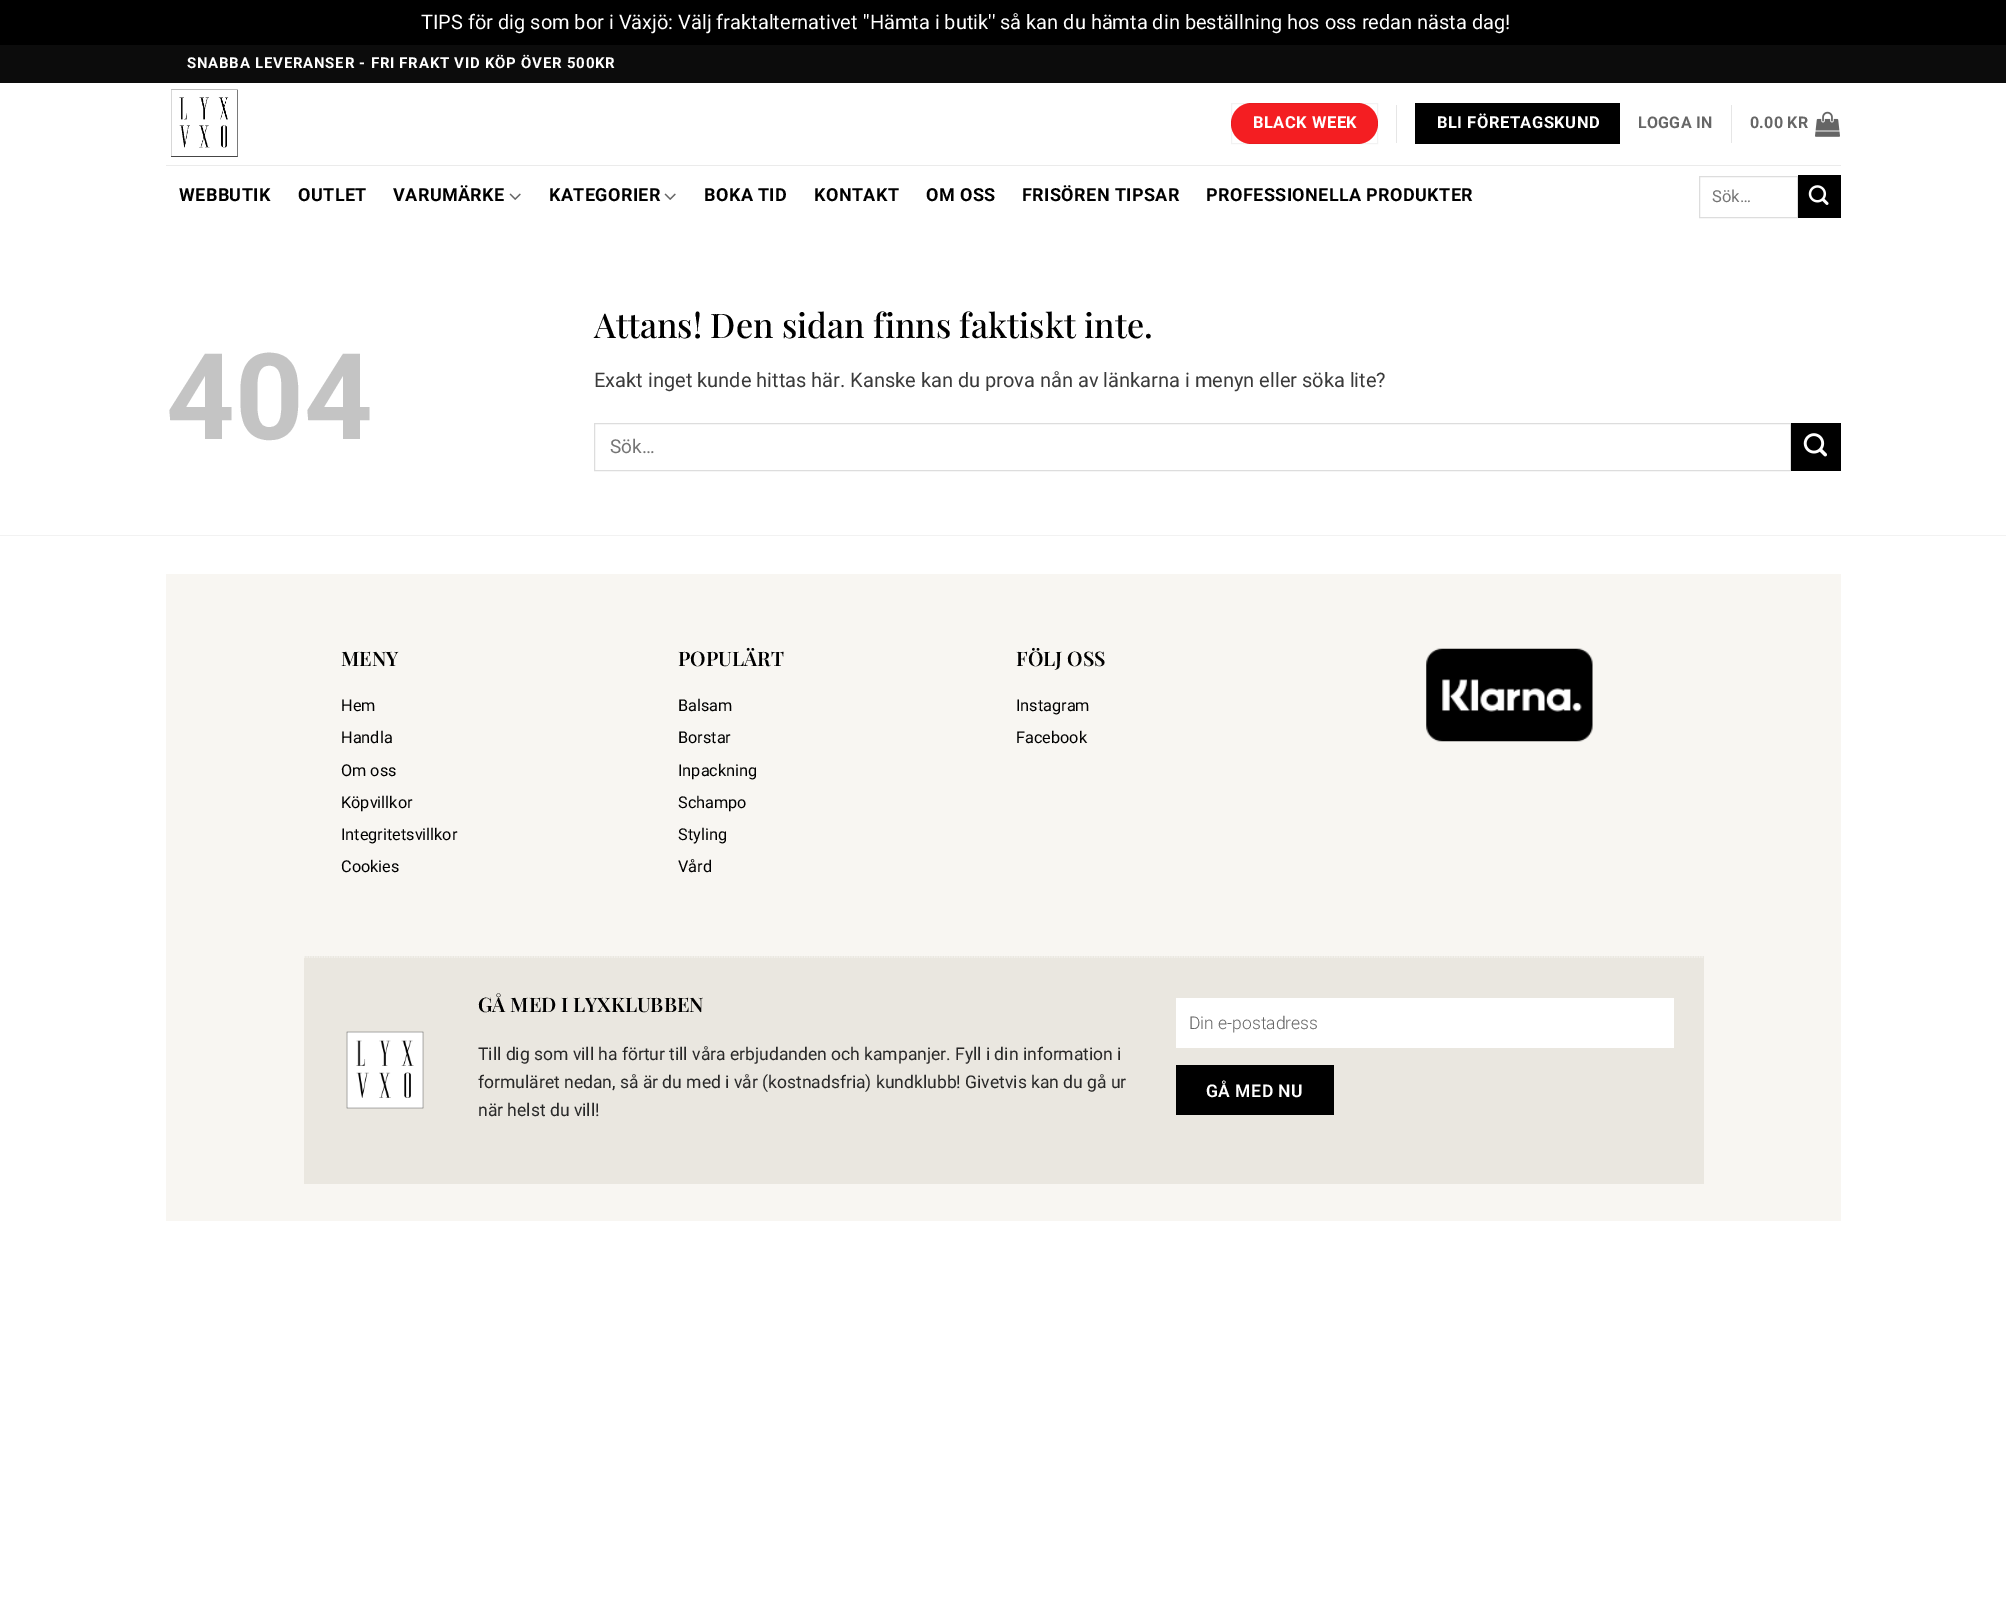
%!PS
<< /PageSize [2006 1614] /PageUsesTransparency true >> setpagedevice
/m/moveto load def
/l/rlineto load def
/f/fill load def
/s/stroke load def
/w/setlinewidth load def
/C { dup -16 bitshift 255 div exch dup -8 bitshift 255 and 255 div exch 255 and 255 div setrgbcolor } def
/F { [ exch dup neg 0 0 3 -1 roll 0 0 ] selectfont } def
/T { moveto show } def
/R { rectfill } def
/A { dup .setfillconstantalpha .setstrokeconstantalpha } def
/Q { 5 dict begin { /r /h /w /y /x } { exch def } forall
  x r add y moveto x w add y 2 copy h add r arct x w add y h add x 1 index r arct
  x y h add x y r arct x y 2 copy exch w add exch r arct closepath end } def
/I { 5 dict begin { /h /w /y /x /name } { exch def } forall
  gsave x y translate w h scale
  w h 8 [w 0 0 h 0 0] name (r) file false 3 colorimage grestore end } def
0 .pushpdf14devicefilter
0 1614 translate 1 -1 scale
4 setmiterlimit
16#FFFFFF C
0 0 2006 1614 R
16#000000 C
0 0 2006 45 R
/Roboto-Regular 20 F
16#FFFFFF C
(TIPS för dig som bor i Växjö: Välj fraktalternativet ''Hämta i butik'' så kan du hämta din beställning hos oss redan nästa dag!) 421 29 T
16#0C0C0C C
0 45 2006 38 R
/Roboto-Bold 15 F
16#FFFFFF C
187 68 m .75 0 (SNABBA LEVERANSER - FRI FRAKT VID KÖP ÖVER 500KR) ashow
(1.rgb) 171 89 67 68 I
16#F41E22 C
1231 103 147 41 20.5 Q f
0.05 A
16#000000 C
1231.5 103.5 146 40 rectstroke
/Roboto-Bold 16.5 F
1 A
16#FFFFFF C
1253 128 m .5 0 (BLACK WEEK) ashow
16#E6E6E6 C
1396 105 1 38 R
16#000000 C
1415 103 205 41 R
16#FFFFFF C
1437 128 m .5 0 (BLI FÖRETAGSKUND) ashow
/Roboto-Bold 16 F
16#666666 C
1638 128 m .25 0 (LOGGA IN) ashow
16#E6E6E6 C
1731 105 1 38 R
16#666666 C
1750 128 m .25 0 (0.00 KR) ashow
(2.rgb) 1815 111 25 26 I
16#EBEBEB C
166 165 1675 1 R
/Roboto-Bold 18 F
16#000000 C
179 201 m .4 0 (WEBBUTIK) ashow
298 201 m .4 0 (OUTLET) ashow
393 201 m .4 0 (VARUMÄRKE) ashow
(3.rgb) 509 193 12 7 I
549 201 m .4 0 (KATEGORIER) ashow
(3.rgb) 664 193 12 7 I
704 201 m .4 0 (BOKA TID) ashow
814 201 m .4 0 (KONTAKT) ashow
926 201 m .4 0 (OM OSS) ashow
1022 201 m .4 0 (FRISÖREN TIPSAR) ashow
1206 201 m .4 0 (PROFESSIONELLA PRODUKTER) ashow
16#DDDDDD C
1699.5 176.5 98 41 rectstroke
/Roboto-Regular 16.5 F
16#757575 C
(Sök…) 1712 202 T
16#000000 C
1798 175 43 43 R
(4.rgb) 1808 185 21 20 I
/Roboto-Bold 120 F
16#C4C4C4 C
(404) 166 439 T
/PlayfairDisplay-Medium 34 F
16#000000 C
(Attans! Den sidan finns faktiskt inte.) 594 338 T
/Roboto-Regular 20 F
16#3A3A3A C
(Exakt inget kunde hittas här. Kanske kan du prova nån av länkarna i menyn eller söka lite?) 594 387 T
16#DDDDDD C
594.5 423.5 1196 47 rectstroke
/Roboto-Regular 19 F
16#757575 C
(Sök…) 610 453 T
16#000000 C
1791 423 50 48 R
(5.rgb) 1803 433 24 24 I
16#F2F2F2 C
0 535 2006 1 R
16#F8F6F2 C
166 574 1675 647 R
/PlayfairDisplay-SemiBold 20 F
16#000000 C
(MENY) 341 666 T
/Roboto-Regular 16.25 F
(Hem) 341 711 T
(Handla) 341 743 T
(Om oss) 341 776 T
(Köpvillkor) 341 808 T
(Integritetsvillkor) 341 840 T
(Cookies) 341 872 T
/PlayfairDisplay-SemiBold 20 F
(POPULÄRT) 678 666 T
/Roboto-Regular 16.25 F
(Balsam) 678 711 T
(Borstar) 678 743 T
(Inpackning) 678 776 T
(Schampo) 678 808 T
(Styling) 678 840 T
(Vård) 678 872 T
/PlayfairDisplay-SemiBold 20 F
(FÖLJ OSS) 1016 666 T
/Roboto-Regular 16.25 F
(Instagram) 1016 711 T
(Facebook) 1016 743 T
(6.rgb) 1426 648 167 94 I
16#EAE7E0 C
304 956 1400 228 R
16#F6F4F1 C
1.2 w
[1.25 1.25] 0 setdash
304 957 m 1400 0 l s
(7.rgb) 346 1031 78 78 I
/PlayfairDisplay-SemiBold 20 F
16#000000 C
(GÅ MED I LYXKLUBBEN) 478 1012 T
/Roboto-Regular 17.5 F
16#282828 C
(Till dig som vill ha förtur till våra erbjudanden och kampanjer. Fyll i din information i) 478 1060 T
(formuläret nedan, så är du med i vår \(kostnadsfria\) kundklubb! Givetvis kan du gå ur) 478 1088 T
(när helst du vill!) 478 1116 T
16#FFFFFF C
1176 998 498 50 R
/Roboto-Light 17.5 F
16#666666 C
(Din e-postadress) 1189 1029 T
16#000000 C
1176 1065 158 50 R
/Roboto-SemiBold 17.5 F
16#FFFFFF C
1206 1097 m .5 0 (GÅ MED NU) ashow
.poppdf14devicefilter showpage
